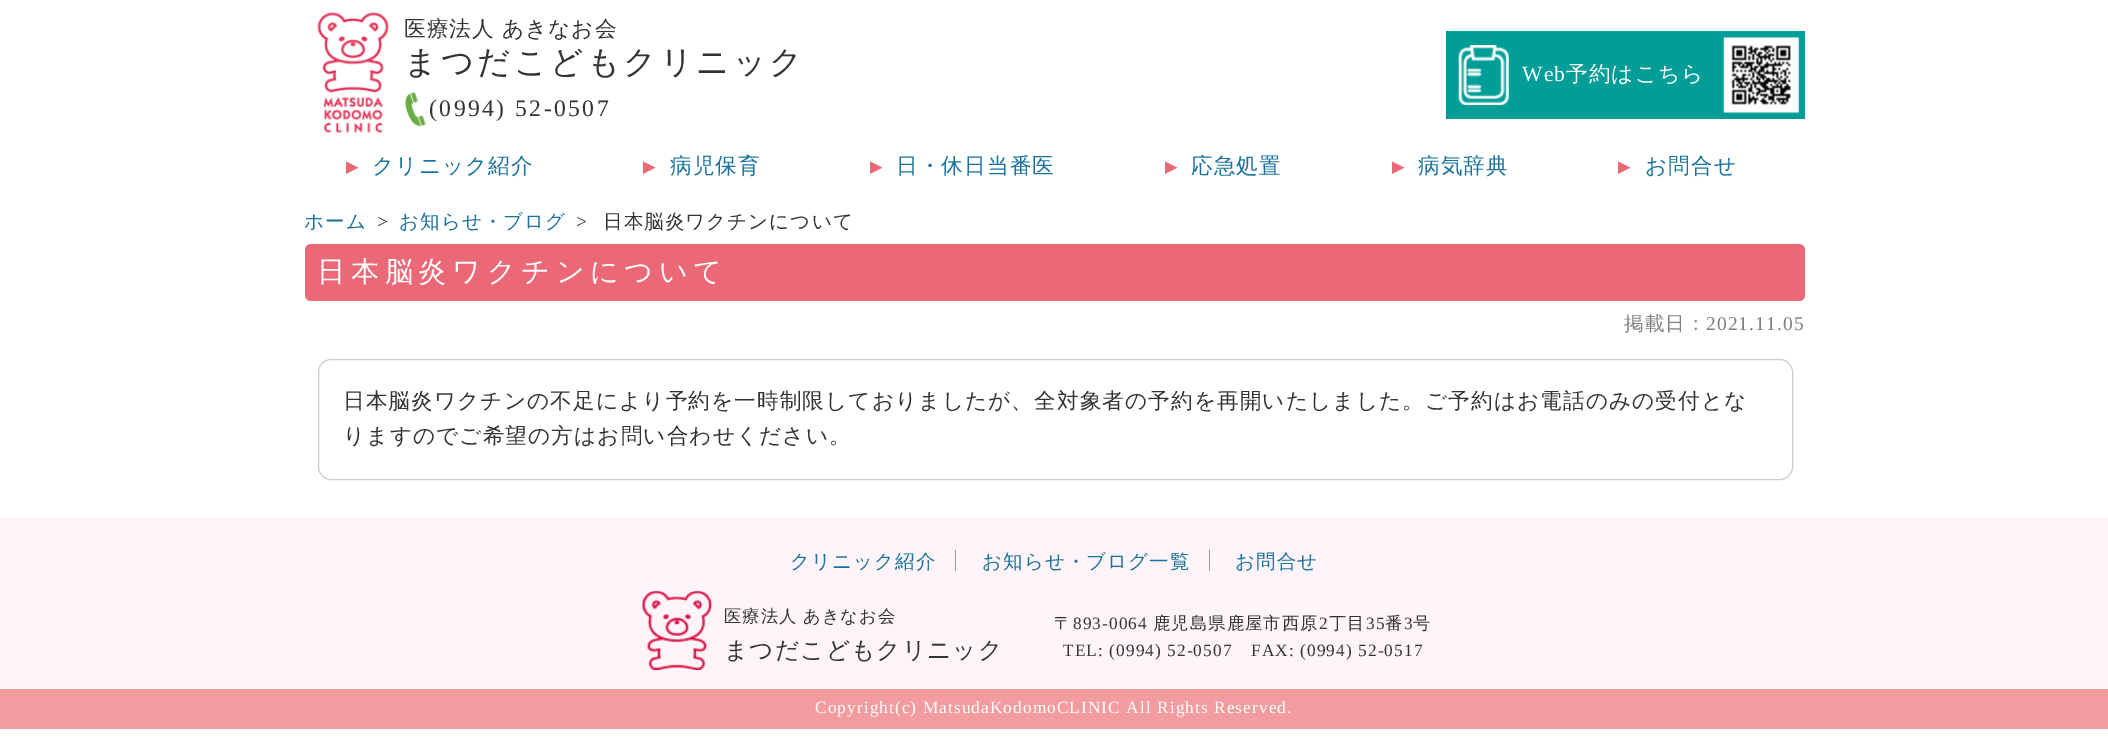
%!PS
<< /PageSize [2108 752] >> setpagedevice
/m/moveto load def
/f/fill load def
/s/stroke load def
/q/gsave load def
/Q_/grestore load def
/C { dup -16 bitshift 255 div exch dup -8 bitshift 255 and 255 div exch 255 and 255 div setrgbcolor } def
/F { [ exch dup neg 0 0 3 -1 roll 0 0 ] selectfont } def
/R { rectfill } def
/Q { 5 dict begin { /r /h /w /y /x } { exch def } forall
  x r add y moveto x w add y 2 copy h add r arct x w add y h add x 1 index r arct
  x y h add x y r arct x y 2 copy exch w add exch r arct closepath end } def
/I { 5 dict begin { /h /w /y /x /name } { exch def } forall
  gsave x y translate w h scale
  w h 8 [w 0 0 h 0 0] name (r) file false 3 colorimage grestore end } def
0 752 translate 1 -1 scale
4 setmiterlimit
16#FFFFFF C
0 0 2108 752 R
(1.rgb) 317 12 72 121 I
/WenQuanYiZenHei-Medium 21.67 F
16#333332 C
404 36 m -1 0 32 1.08 0 (医療法人 あきなお会) awidthshow
/WenQuanYiZenHei-Medium 32.5 F
404 73 m 3.25 0 (まつだこどもクリニック) ashow
(2.rgb) 405 92 21 35 I
/LiberationSerif-Regular 23.75 F
429 116 m 2.4 0 (\(0994\) 52-0507) ashow
16#009E96 C
1446 31 359 88 R
(3.rgb) 1458 45 51 60 I
/LiberationSerif-Regular 21.67 F
16#FFFFFF C
1522 81 m 1.08 0 (Web) ashow
/WenQuanYiZenHei-Medium 21.67 F
1566 81 m 1.08 0 (予約はこちら) ashow
(4.rgb) 1723 37 76 76 I
/LiberationSerif-Regular 21.67 F
16#EB6877 C
q 346 157 translate 90 rotate 0 0 m 1.08 0 (▲) ashow Q_
/WenQuanYiZenHei-Medium 21.67 F
16#18729C C
372 173 m 1.08 0 (クリニック紹介) ashow
/LiberationSerif-Regular 21.67 F
16#EB6877 C
q 643 157 translate 90 rotate 0 0 m 1.08 0 (▲) ashow Q_
/WenQuanYiZenHei-Medium 21.67 F
16#18729C C
670 173 m 1.08 0 (病児保育) ashow
/LiberationSerif-Regular 21.67 F
16#EB6877 C
q 870 157 translate 90 rotate 0 0 m 1.08 0 (▲) ashow Q_
/WenQuanYiZenHei-Medium 21.67 F
16#18729C C
896 173 m 1.08 0 (日・休日当番医) ashow
/LiberationSerif-Regular 21.67 F
16#EB6877 C
q 1165 157 translate 90 rotate 0 0 m 1.08 0 (▲) ashow Q_
/WenQuanYiZenHei-Medium 21.67 F
16#18729C C
1191 173 m 1.08 0 (応急処置) ashow
/LiberationSerif-Regular 21.67 F
16#EB6877 C
q 1392 157 translate 90 rotate 0 0 m 1.08 0 (▲) ashow Q_
/WenQuanYiZenHei-Medium 21.67 F
16#18729C C
1418 173 m 1.08 0 (病気辞典) ashow
/LiberationSerif-Regular 21.67 F
16#EB6877 C
q 1618 157 translate 90 rotate 0 0 m 1.08 0 (▲) ashow Q_
/WenQuanYiZenHei-Medium 21.67 F
16#18729C C
1645 173 m 1.08 0 (お問合せ) ashow
/WenQuanYiZenHei-Medium 19.5 F
304 228 m 1.08 0 (ホーム) ashow
/LiberationSerif-Regular 19.5 F
16#333332 C
377 228 m 1.08 0 (>) ashow
/WenQuanYiZenHei-Medium 19.5 F
16#18729C C
399 228 m 1.08 0 (お知らせ・ブログ) ashow
/LiberationSerif-Regular 19.5 F
16#333332 C
576 228 m 1.08 0 (>) ashow
/WenQuanYiZenHei-Medium 19.5 F
603 228 m 1.08 0 (日本脳炎ワクチンについて) ashow
16#EB6877 C
305 244 1500 57 6 Q f
/WenQuanYiZenHei-Medium 28.2 F
16#FFFFFF C
317 281 m 5.6 0 (日本脳炎ワクチンについて) ashow
/WenQuanYiZenHei-Medium 19.5 F
16#808080 C
1624 330 m 1.08 0 (掲載日：) ashow
/LiberationSerif-Regular 19.5 F
1706 330 m 1.08 0 (2021.11.05) ashow
16#CCCCCC C
318.5 359.5 1474 120 12.5 Q s
/WenQuanYiZenHei-Medium 21.67 F
16#333332 C
343 408 m 1.08 0 (日本脳炎ワクチンの不足により予約を一時制限しておりましたが、全対象者の予約を再開いたしました。ご予約はお電話のみの受付とな) ashow
343 443 m 1.08 0 (りますのでご希望の方はお問い合わせください。) ashow
16#FFF4F9 C
0 519 2108 170 R
16#FFEFF7 C
0 518 2108 1 R
/WenQuanYiZenHei-Medium 19.5 F
16#18729C C
790 568 m 1.08 0 (クリニック紹介) ashow
16#999999 C
955 550 1 21 R
16#18729C C
982 568 m 1.08 0 (お知らせ・ブログ一覧) ashow
16#999999 C
1209 550 1 21 R
16#18729C C
1235 568 m 1.08 0 (お問合せ) ashow
(5.rgb) 642 591 70 79 I
/WenQuanYiZenHei-Medium 17.3 F
16#333332 C
724 622 m -1 0 32 1.08 0 (医療法人 あきなお会) awidthshow
/WenQuanYiZenHei-Medium 23.75 F
724 658 m 1.08 0 (まつだこどもクリニック) ashow
/WenQuanYiZenHei-Medium 17.3 F
1054 629 m 1.08 0 (〒) ashow
/LiberationSerif-Regular 17.3 F
1073 629 m 1.08 0 (893-0064) ashow
/WenQuanYiZenHei-Medium 17.3 F
1153 629 m 1.08 0 (鹿児島県鹿屋市西原) ashow
/LiberationSerif-Regular 17.3 F
1319 629 m 1.08 0 (2) ashow
/WenQuanYiZenHei-Medium 17.3 F
1329 629 m 1.08 0 (丁目) ashow
/LiberationSerif-Regular 17.3 F
1366 629 m 1.08 0 (35) ashow
/WenQuanYiZenHei-Medium 17.3 F
1385 629 m 1.08 0 (番) ashow
/LiberationSerif-Regular 17.3 F
1404 629 m 1.08 0 (3) ashow
/WenQuanYiZenHei-Medium 17.3 F
1413 629 m 1.08 0 (号) ashow
/LiberationSerif-Regular 17.3 F
1063 656 m 1.08 0 (TEL: \(0994\) 52-0507) ashow
1251 656 m 1.08 0 (FAX: \(0994\) 52-0517) ashow
16#F29C9F C
0 689 2108 40 R
16#FFFFFF C
815 713 m 1.08 0 (Copyright\(c\) MatsudaKodomoCLINIC All Rights Reserved.) ashow
showpage
